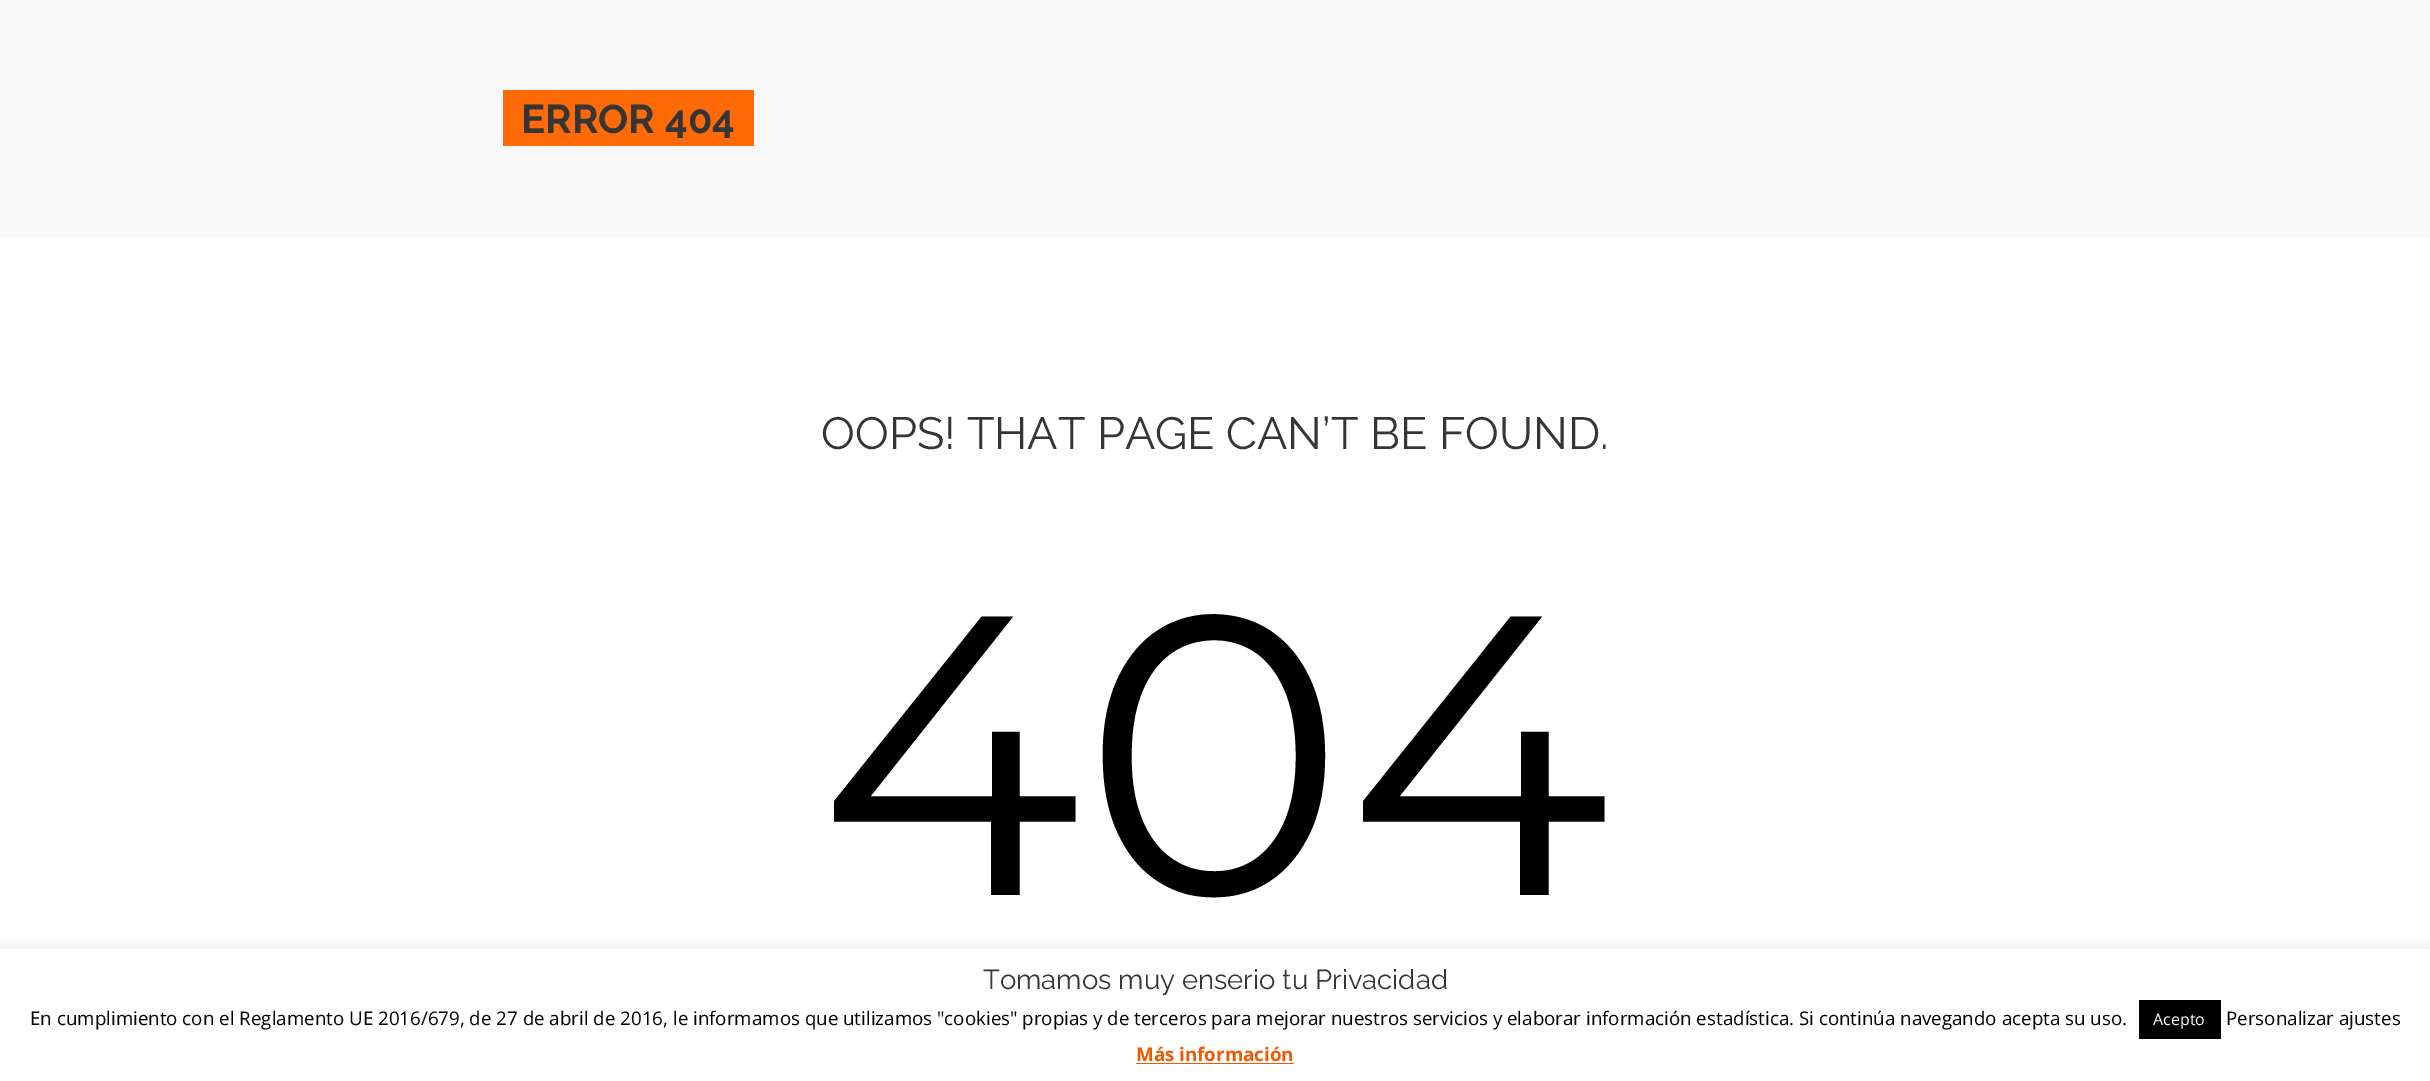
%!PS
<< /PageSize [2430 1081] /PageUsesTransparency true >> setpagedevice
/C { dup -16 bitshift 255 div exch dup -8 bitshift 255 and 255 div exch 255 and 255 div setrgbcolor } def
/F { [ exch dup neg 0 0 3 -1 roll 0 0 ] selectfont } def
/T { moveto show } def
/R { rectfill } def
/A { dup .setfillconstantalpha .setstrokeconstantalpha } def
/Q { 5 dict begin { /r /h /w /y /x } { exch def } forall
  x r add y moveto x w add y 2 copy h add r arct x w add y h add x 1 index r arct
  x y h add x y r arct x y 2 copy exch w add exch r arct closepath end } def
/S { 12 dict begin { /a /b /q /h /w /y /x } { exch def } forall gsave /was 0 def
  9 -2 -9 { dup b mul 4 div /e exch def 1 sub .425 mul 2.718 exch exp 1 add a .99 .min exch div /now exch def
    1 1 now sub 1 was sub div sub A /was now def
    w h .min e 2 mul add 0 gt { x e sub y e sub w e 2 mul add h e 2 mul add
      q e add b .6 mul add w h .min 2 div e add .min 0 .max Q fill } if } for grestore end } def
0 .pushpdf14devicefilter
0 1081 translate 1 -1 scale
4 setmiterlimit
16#FFFFFF C
0 0 2430 1081 R
16#F9F9F9 C
0 0 2430 238 R
16#FF6A07 C
503 90 251 56 R
/Raleway-Bold 40 F
16#353535 C
(ERROR 404) 521 133 T
/Raleway-Regular 45 F
(OOPS! THAT PAGE CAN’T BE FOUND.) 821 449 T
/Montserrat-Regular 400 F
16#000000 C
(404) 818 895 T
16#ACABAB C
0 948 2430 132 0 6 .3 S
16#FFFFFF C
0 949 2430 132 R
/Raleway-Regular 27.5 F
16#353535 C
(Tomamos muy enserio tu Privacidad) 983 989 T
/OpenSans-Regular 18.75 F
16#000000 C
(En cumplimiento con el Reglamento UE 2016/679, de 27 de abril de 2016, le informamos que utilizamos "cookies" propias y de terceros para mejorar nuestros servicios y elaborar información estadística. Si continúa navegando acepta su uso.) 30 1025 T
2139 1000 82 39 R
/OpenSans-Regular 16 F
16#FFFFFF C
(Acepto) 2153 1025 T
/OpenSans-Regular 18.75 F
16#000000 C
(Personalizar ajustes) 2226 1025 T
/OpenSans-Bold 18.75 F
16#F25800 C
(Más información) 1136 1061 T
1136 1063 158 1 R
.poppdf14devicefilter showpage
